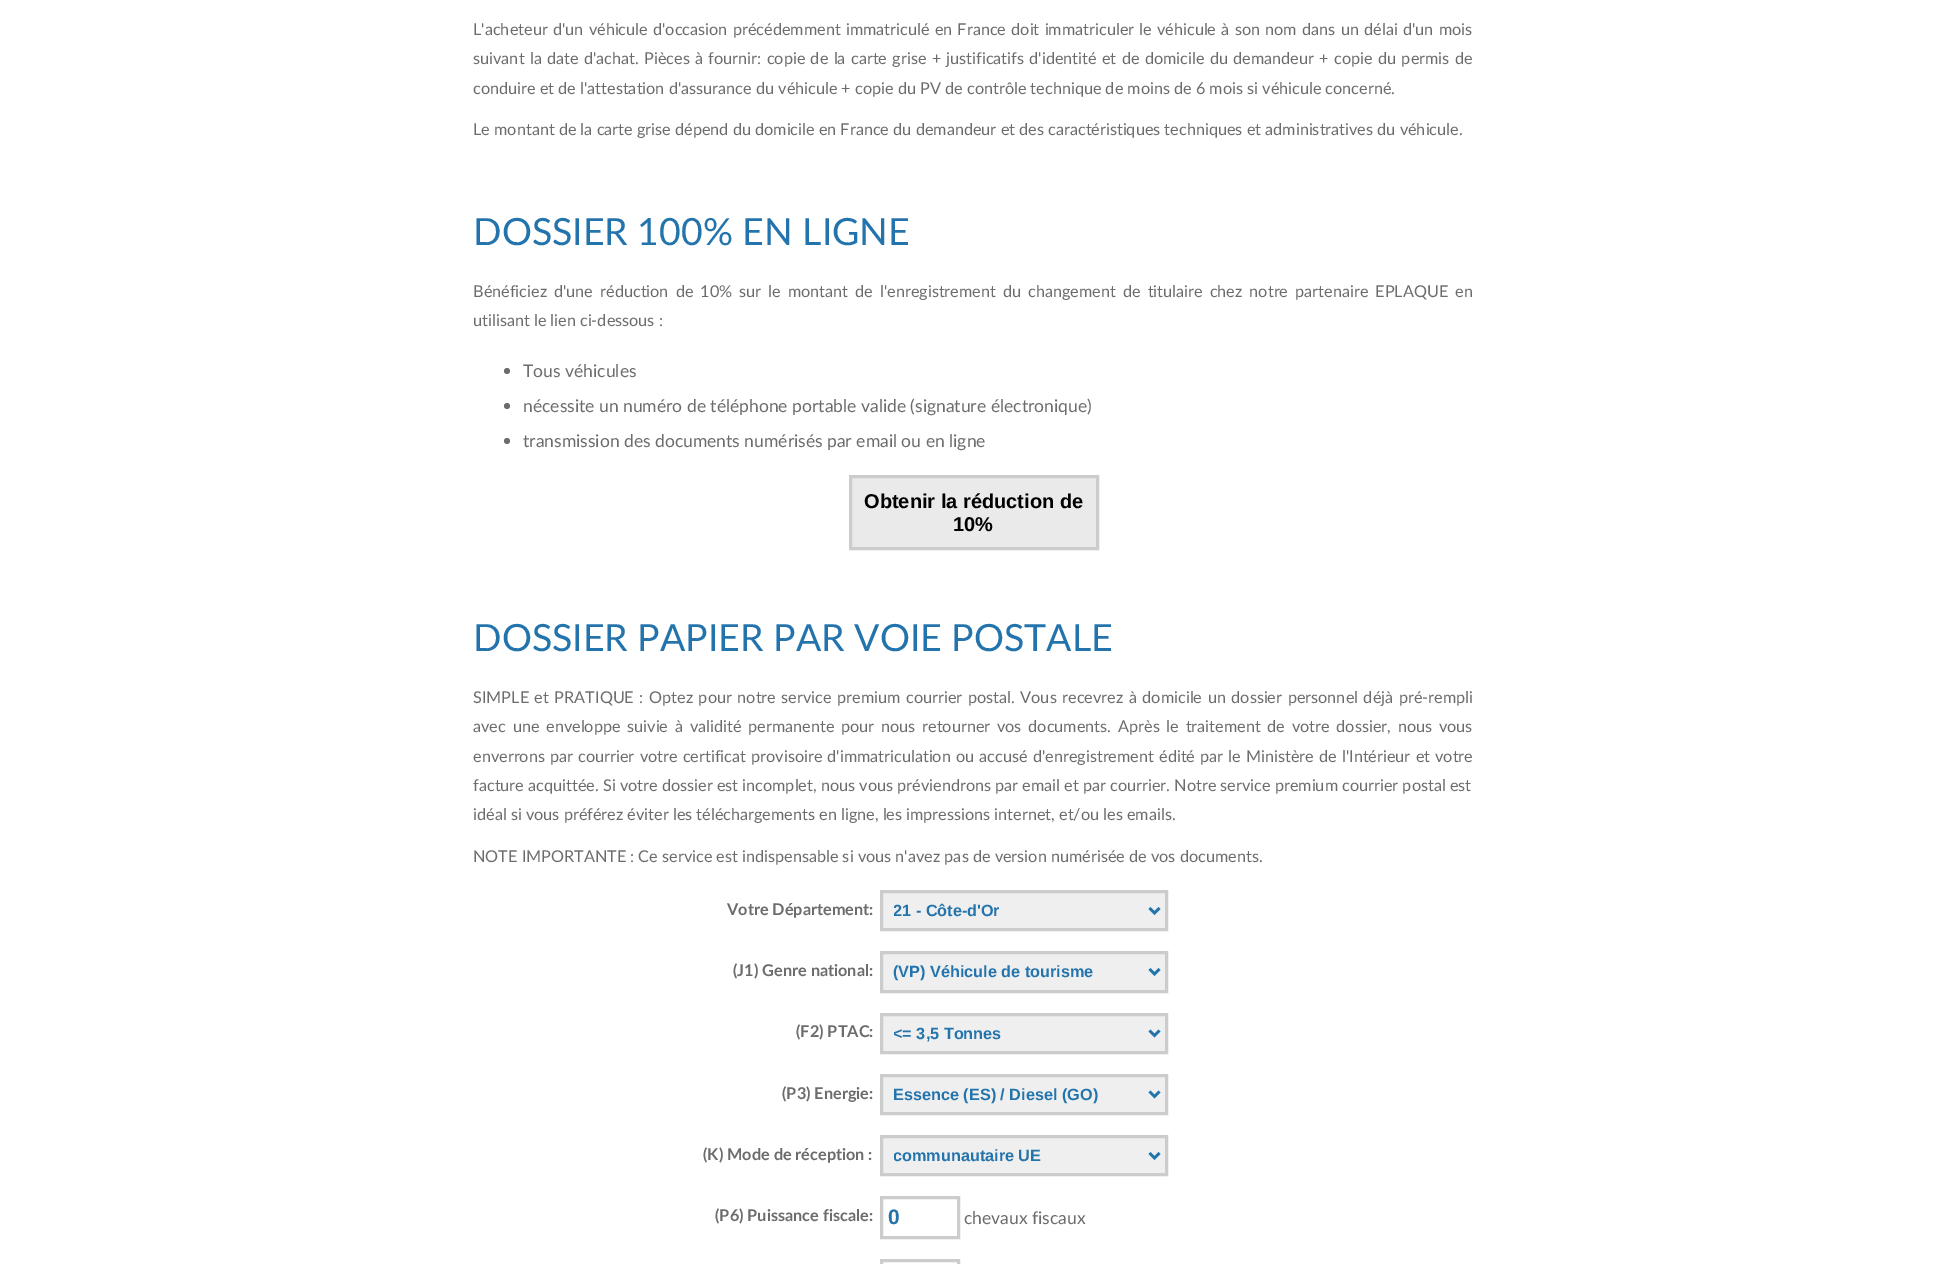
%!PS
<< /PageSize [1946 1264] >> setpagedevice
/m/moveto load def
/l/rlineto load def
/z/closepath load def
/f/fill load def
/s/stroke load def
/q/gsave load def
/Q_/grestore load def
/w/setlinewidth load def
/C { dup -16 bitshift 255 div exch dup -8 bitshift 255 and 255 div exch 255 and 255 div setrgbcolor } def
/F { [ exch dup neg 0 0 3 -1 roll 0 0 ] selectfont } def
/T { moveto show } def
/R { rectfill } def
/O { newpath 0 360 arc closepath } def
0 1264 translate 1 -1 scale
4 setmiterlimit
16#FFFFFF C
0 0 1946 1264 R
/Lato-Regular 16.25 F
16#6C6C6C C
473 35 m 1.1 0 32 (L'acheteur d'un véhicule d'occasion précédemment immatriculé en France doit immatriculer le véhicule à son nom dans un délai d'un mois) widthshow
473 64 m 1.2 0 32 (suivant la date d'achat.) widthshow
644 64 m 1.2 0 32 (Pièces à fournir: copie de la carte grise + justificatifs d'identité et de domicile du demandeur + copie du permis de) widthshow
(conduire et de l'attestation d'assurance du véhicule + copie du PV de contrôle technique de moins de 6 mois si véhicule concerné.) 473 94 T
(Le montant de la carte grise dépend du domicile en France du demandeur et des caractéristiques techniques et administratives du véhicule.) 473 135 T
/Lato-Regular 37.5 F
16#2374AD C
(DOSSIER 100% EN LIGNE) 473 245 T
/Lato-Regular 16.25 F
16#6C6C6C C
473 297 m 2.9 0 32 (Bénéficiez d'une réduction de 10% sur le montant de l'enregistrement du changement de titulaire chez notre partenaire EPLAQUE en) widthshow
(utilisant le lien ci-dessous :) 473 326 T
507 371 3 O f
/Lato-Regular 17.5 F
(Tous véhicules) 523 377 T
507 406 3 O f
(nécessite un numéro de téléphone portable valide \(signature électronique\)) 523 412 T
507 441 3 O f
(transmission des documents numérisés par email ou en ligne) 523 447 T
16#EAEAEA C
850.5 476.5 m 247 0 l 0 72 l -247 0 l z q f Q_
16#CCCCCC C
3 w
s
/LiberationSans-Bold 20 F
16#000000 C
(Obtenir la réduction de) 864 508 T
(10%) 953 531 T
/Lato-Regular 37.5 F
16#2374AD C
(DOSSIER PAPIER PAR VOIE POSTALE) 473 651 T
/Lato-Regular 16.25 F
16#6C6C6C C
473 703 m 1.4 0 32 (SIMPLE et PRATIQUE : Optez pour notre service premium courrier postal. Vous recevrez à domicile un dossier personnel déjà pré-rempli) widthshow
473 732 m 2.6 0 32 (avec une enveloppe suivie à validité permanente pour nous retourner vos documents.) widthshow
1118 732 m 2.6 0 32 (Après le traitement de votre dossier, nous vous) widthshow
473 762 m 1 0 32 (enverrons par courrier votre certificat provisoire d'immatriculation ou accusé d'enregistrement édité par le Ministère de l'Intérieur et votre) widthshow
(facture acquittée. Si votre dossier est incomplet, nous vous préviendrons par email et par courrier. Notre service premium courrier postal est) 473 791 T
(idéal si vous préférez éviter les téléchargements en ligne, les impressions internet, et/ou les emails.) 473 820 T
(NOTE IMPORTANTE : Ce service est indispensable si vous n'avez pas de version numérisée de vos documents.) 473 862 T
/Lato-Bold 16.25 F
(Votre Département:) 727 915 T
16#EFEFEF C
881.5 891.5 m 285 0 l 0 38 l -285 0 l z q f Q_
16#CCCCCC C
s
16#2374AD C
2.5 w
1149.5 908 m 5 5 l 5 -5 l s
q
894 900 245 21 rectclip
/LiberationSans-Bold 16.25 F
(21 - Côte-d'Or) 893 916 T
Q_
16#6C6C6C C
(\(J1\) Genre national:) 733 976 T
16#EFEFEF C
881.5 952.5 m 285 0 l 0 39 l -285 0 l z q f Q_
16#CCCCCC C
3 w
s
16#2374AD C
2.5 w
1149.5 969 m 5 5 l 5 -5 l s
/LiberationSans-Bold 16.25 F
(\(VP\) Véhicule de tourisme) 893 977 T
/Lato-Bold 16.25 F
16#6C6C6C C
(\(F2\) PTAC:) 796 1037 T
16#EFEFEF C
881.5 1014.5 m 285 0 l 0 38 l -285 0 l z q f Q_
16#CCCCCC C
3 w
s
16#2374AD C
2.5 w
1149.5 1030.5 m 5 5 l 5 -5 l s
q
894 1023 245 21 rectclip
/LiberationSans-Bold 16.25 F
(<= 3,5 Tonnes) 893 1039 T
Q_
16#6C6C6C C
(\(P3\) Energie:) 782 1099 T
16#EFEFEF C
881.5 1075.5 m 285 0 l 0 38 l -285 0 l z q f Q_
16#CCCCCC C
3 w
s
16#2374AD C
2.5 w
1149.5 1091.5 m 5 5 l 5 -5 l s
/LiberationSans-Bold 16.25 F
(Essence \(ES\) / Diesel \(GO\)) 893 1100 T
/Lato-Bold 16.25 F
16#6C6C6C C
(\(K\) Mode de réception :) 703 1160 T
16#EFEFEF C
881.5 1136.5 m 285 0 l 0 38 l -285 0 l z q f Q_
16#CCCCCC C
3 w
s
16#2374AD C
2.5 w
1149.5 1153 m 5 5 l 5 -5 l s
q
894 1145 245 21 rectclip
/LiberationSans-Bold 16.25 F
(communautaire UE) 893 1161 T
Q_
16#6C6C6C C
(\(P6\) Puissance fiscale:) 715 1221 T
16#CCCCCC C
3 w
881.5 1197.5 77 40 rectstroke
/LiberationSans-Bold 21 F
16#2374AD C
(0) 888 1224 T
/Lato-Regular 17.5 F
16#6C6C6C C
(chevaux fiscaux) 964 1224 T
16#CCCCCC C
881.5 1260.5 77 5 rectstroke
showpage
